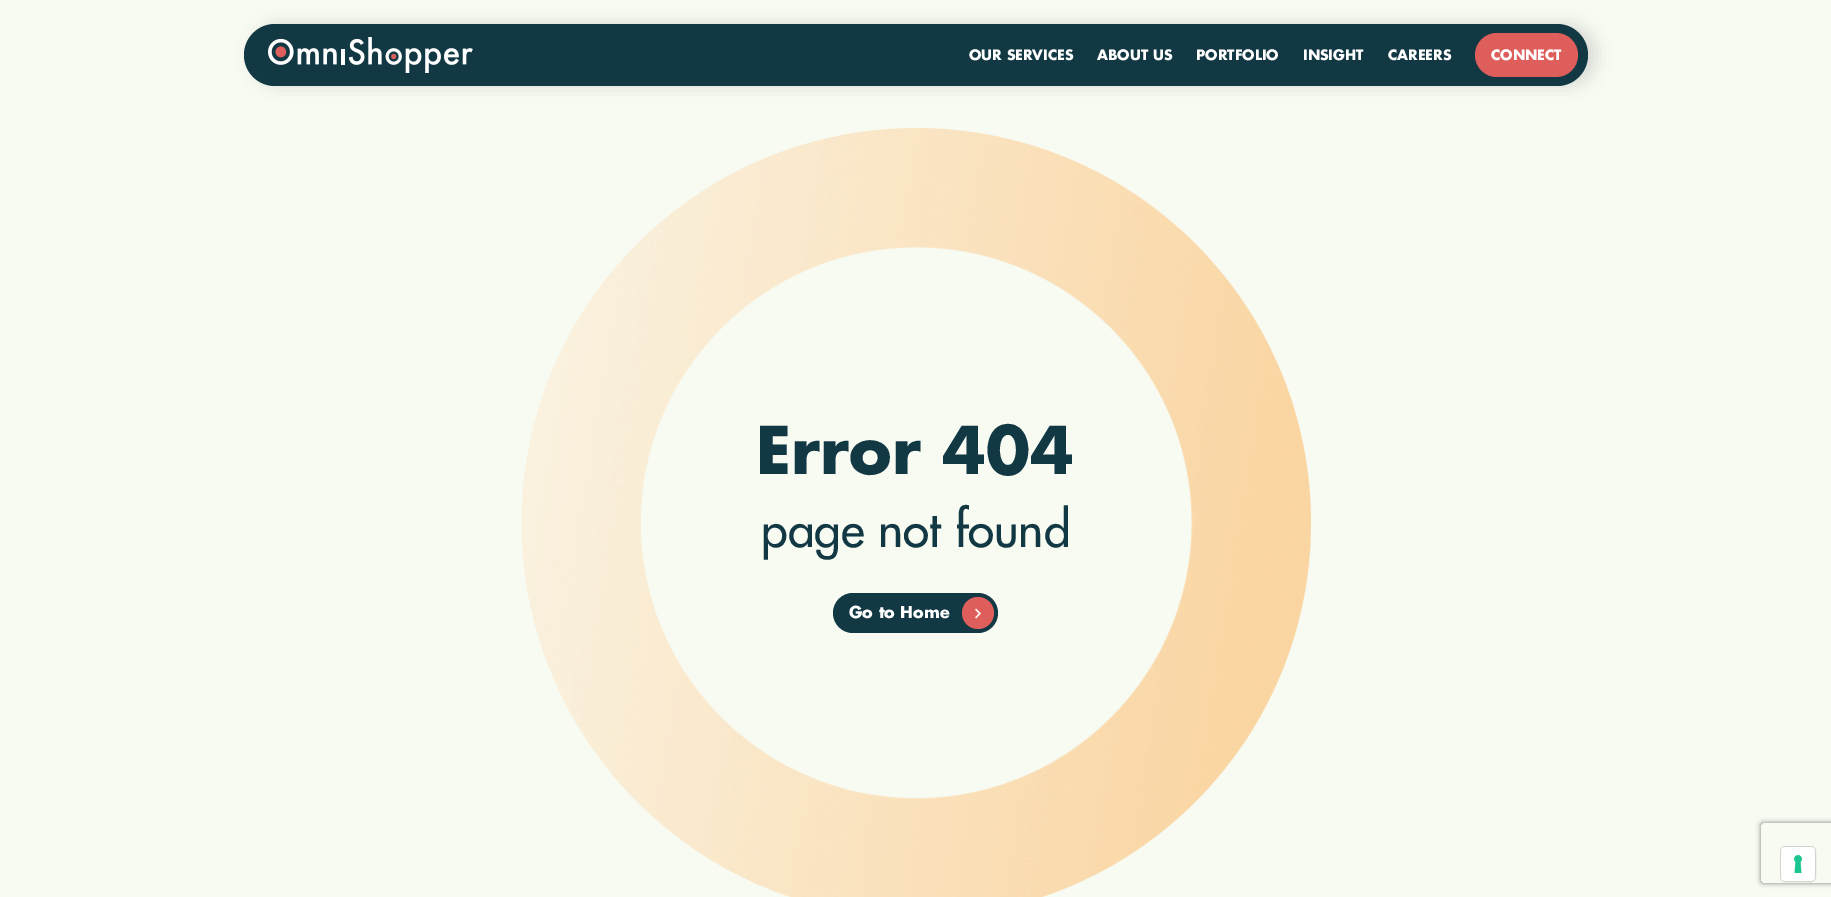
%!PS
<< /PageSize [1831 897] /PageUsesTransparency true >> setpagedevice
/m/moveto load def
/l/rlineto load def
/c/rcurveto load def
/z/closepath load def
/f/fill load def
/s/stroke load def
/q/gsave load def
/Q_/grestore load def
/C { dup -16 bitshift 255 div exch dup -8 bitshift 255 and 255 div exch 255 and 255 div setrgbcolor } def
/F { [ exch dup neg 0 0 3 -1 roll 0 0 ] selectfont } def
/T { moveto show } def
/R { rectfill } def
/A { dup .setfillconstantalpha .setstrokeconstantalpha } def
/O { newpath 0 360 arc closepath } def
/Q { 5 dict begin { /r /h /w /y /x } { exch def } forall
  x r add y moveto x w add y 2 copy h add r arct x w add y h add x 1 index r arct
  x y h add x y r arct x y 2 copy exch w add exch r arct closepath end } def
/S { 12 dict begin { /a /b /q /h /w /y /x } { exch def } forall gsave /was 0 def
  9 -2 -9 { dup b mul 4 div /e exch def 1 sub .425 mul 2.718 exch exp 1 add a .99 .min exch div /now exch def
    1 1 now sub 1 was sub div sub A /was now def
    w h .min e 2 mul add 0 gt { x e sub y e sub w e 2 mul add h e 2 mul add
      q e add b .6 mul add w h .min 2 div e add .min 0 .max Q fill } if } for grestore end } def
/I { 5 dict begin { /h /w /y /x /name } { exch def } forall
  gsave x y translate w h scale
  w h 8 [w 0 0 h 0 0] name (r) file false 3 colorimage grestore end } def
0 .pushpdf14devicefilter
0 897 translate 1 -1 scale
4 setmiterlimit
16#F7FBF2 C
0 0 1831 897 R
16#000000 C
252 24 1344 62 31 8 .12 S
16#123844 C
244 24 1344 62 31 Q f
(1.rgb) 268 37 205 36 I
/Futura-Bold 14 F
16#FFFFFF C
(OUR SERVICES) 969 60 T
(ABOUT US) 1097 60 T
(PORTFOLIO) 1196 60 T
(INSIGHT) 1303 60 T
(CAREERS) 1388 60 T
16#DE5E5B C
1475 33 103 44 22 Q f
16#FFFFFF C
(CONNECT) 1491 60 T
(2.rgb) 521 128 790 769 I
/Futura-Bold 64 F
16#123844 C
(Error 404) 756 474 T
/Futura-Medium 48 F
(page not found) 761 547 T
833 593 165 40 20 Q f
/Futura-Bold 16 F
16#FFFFFF C
(Go to Home) 849 618 T
16#DE5E5B C
978 613 16 O f
(3.rgb) 975 608 6 11 I
q
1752 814 m 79 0 l 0 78 l -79 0 l z 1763 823 m 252 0 l 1 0 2 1 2 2 c 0 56 l 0 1 -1 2 -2 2 c -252 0 l -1 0 -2 -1 -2 -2 c 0 -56 l 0 -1 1 -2 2 -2 c z eoclip newpath
16#808080 C
1761 823 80 60 2 2.5 1 S
Q_
16#D2D5CE C
1780.5 846.5 35 35 4.5 Q s
16#FFFFFF C
1781 847 34 34 4 Q f
(4.rgb) 1794 855 8 18 I
.poppdf14devicefilter showpage
